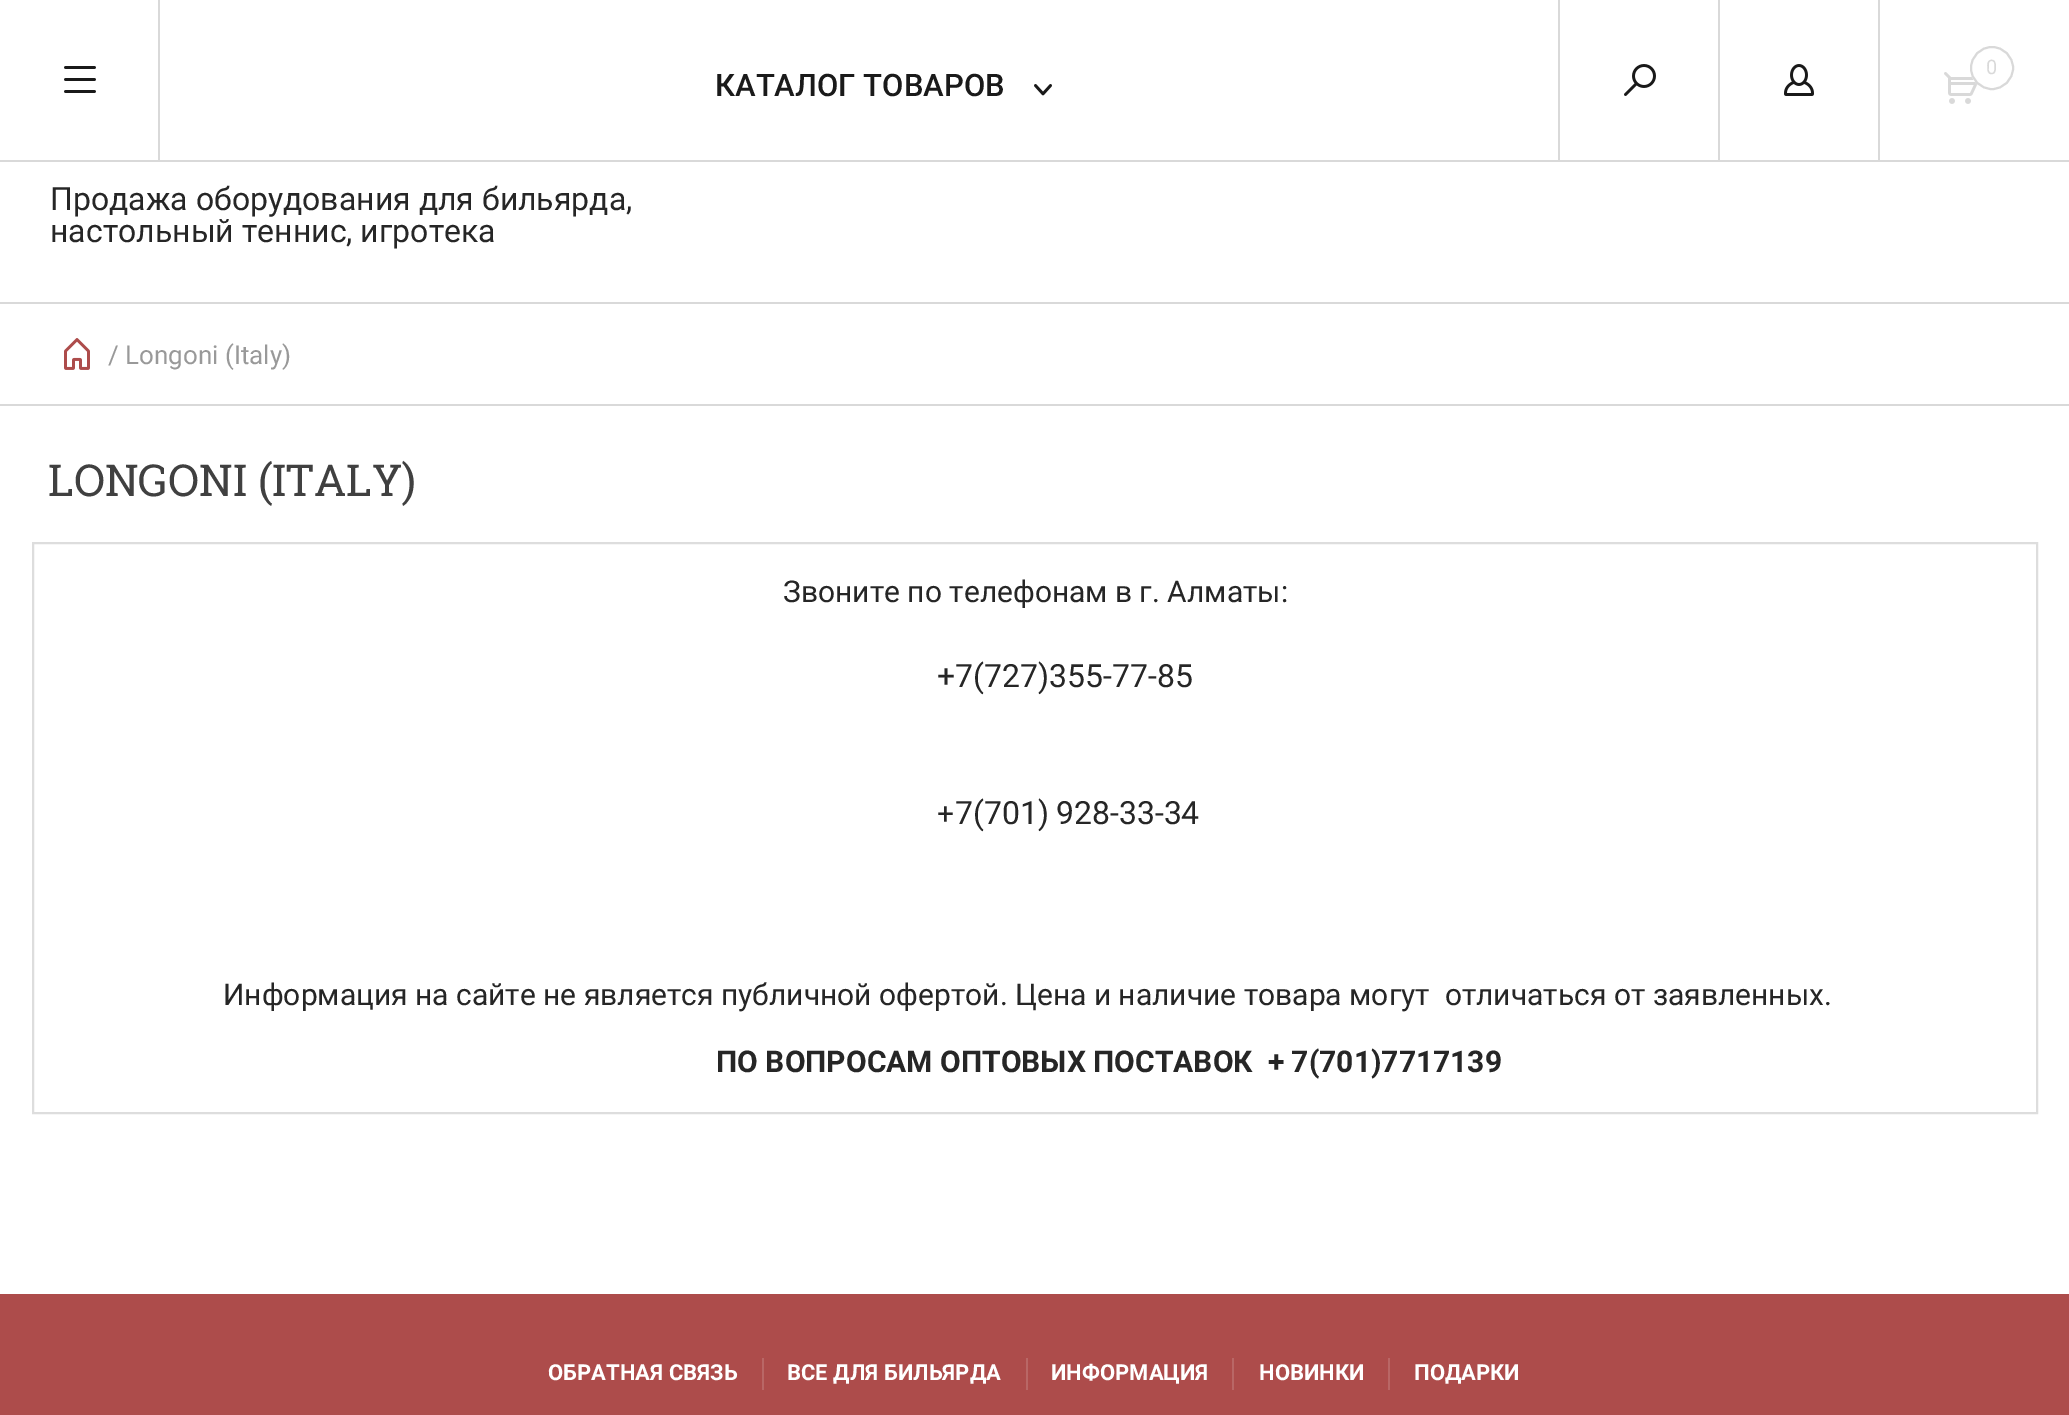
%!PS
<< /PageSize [2069 1415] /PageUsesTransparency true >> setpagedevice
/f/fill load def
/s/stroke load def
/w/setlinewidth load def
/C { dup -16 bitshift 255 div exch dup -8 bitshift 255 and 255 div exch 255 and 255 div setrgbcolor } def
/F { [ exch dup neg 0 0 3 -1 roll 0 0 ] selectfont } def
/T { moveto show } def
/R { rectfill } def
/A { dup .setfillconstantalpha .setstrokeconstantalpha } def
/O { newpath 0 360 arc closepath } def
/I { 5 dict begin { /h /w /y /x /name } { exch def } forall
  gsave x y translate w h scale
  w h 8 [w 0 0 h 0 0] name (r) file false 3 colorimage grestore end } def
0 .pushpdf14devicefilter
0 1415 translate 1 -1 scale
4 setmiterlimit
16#FFFFFF C
0 0 2069 1415 R
16#D9D9D9 C
0 160 2069 2 R
(1.rgb) 64 66 32 27 I
158 0 2 160 R
1558 0 2 160 R
(2.rgb) 1624 64 32 32 I
(3.rgb) 1784 64 30 32 I
1718 0 2 160 R
(4.rgb) 1944 72 34 32 I
1878 0 2 160 R
16#FFFFFF C
1992 68 22 O f
0.15 A
16#000000 C
2 w
1992 68 21 O s
/Roboto-Regular 20 F
1 A
16#D9D9D9 C
(0) 1986 74 T
/Roboto-Medium 31 F
16#1A1A1A C
(КАТАЛОГ ТОВАРОВ) 715 96 T
(5.rgb) 1034 84 18 12 I
/Roboto-Regular 32 F
16#262626 C
(Продажа оборудования для бильярда,) 50 210 T
(настольный теннис, игротека) 50 242 T
16#D9D9D9 C
0 302 2069 2 R
0 404 2069 2 R
(6.rgb) 64 338 26 32 I
/Roboto-Regular 26 F
16#999999 C
(/ Longoni \(Italy\)) 108 364 T
/RobotoSlab-Regular 44 F
16#404040 C
(LONGONI \(ITALY\)) 48 496 T
16#DDDDDD C
33 543 2004 570 rectstroke
/Roboto-Regular 30 F
16#262626 C
(Звоните по телефонам в г. Алматы:) 783 602 T
/Roboto-Regular 32 F
(+7\(727\)355-77-85) 937 687 T
/Roboto-Regular 30 F
(+) 937 824 T
/Roboto-Regular 32 F
(7\(701\)) 955 824 T
(928-33-34) 1056 824 T
/Roboto-Regular 30 F
(Информация на сайте не является публичной офертой. Цена и наличие товара могут  отличаться от заявленных.) 223 1005 T
/Roboto-Bold 30 F
(ПО ВОПРОСАМ ОПТОВЫХ ПОСТАВОК  + 7\(701\)7717139) 716 1072 T
16#AD4C4B C
0 1294 2069 121 R
/Roboto-Bold 22 F
16#FFFFFF C
(ОБРАТНАЯ СВЯЗЬ) 548 1380 T
16#B96766 C
762 1358 2 32 R
16#FFFFFF C
(ВСЕ ДЛЯ БИЛЬЯРДА) 787 1380 T
16#B96766 C
1026 1358 2 32 R
16#FFFFFF C
(ИНФОРМАЦИЯ) 1051 1380 T
16#B96766 C
1232 1358 2 32 R
16#FFFFFF C
(НОВИНКИ) 1259 1380 T
16#B96766 C
1388 1358 2 32 R
16#FFFFFF C
(ПОДАРКИ) 1414 1380 T
.poppdf14devicefilter showpage
